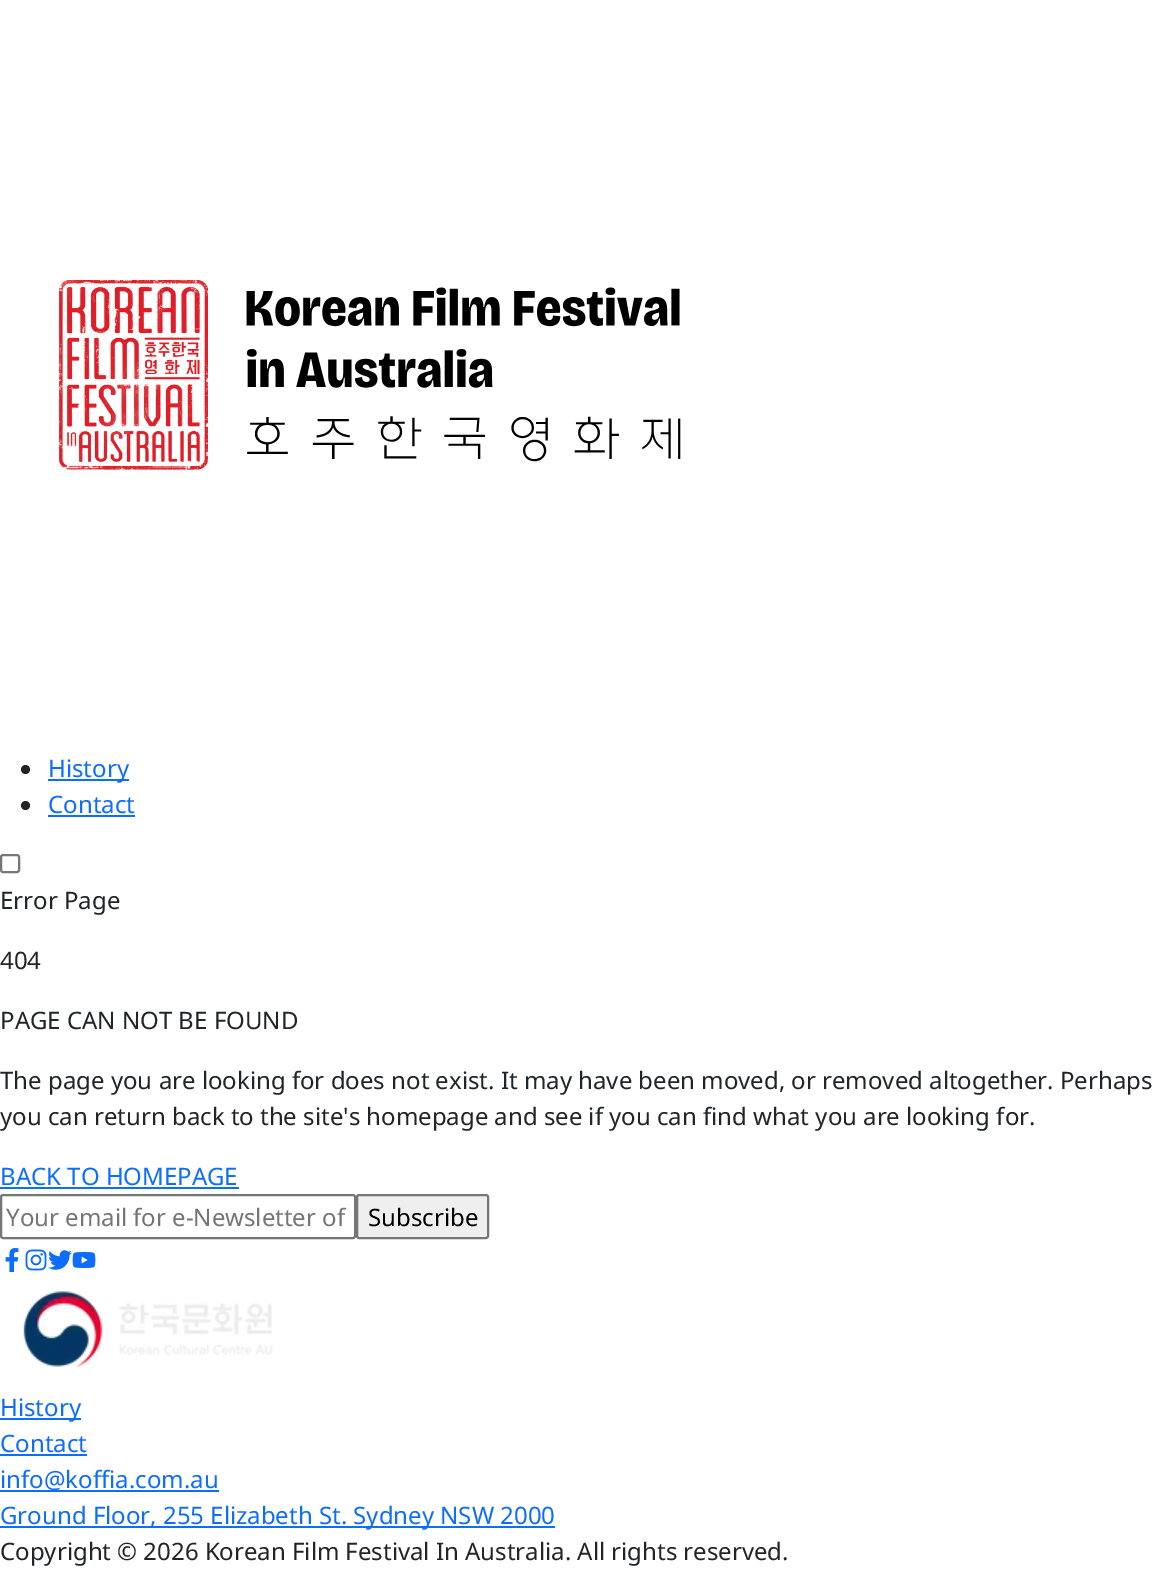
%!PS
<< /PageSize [1164 1571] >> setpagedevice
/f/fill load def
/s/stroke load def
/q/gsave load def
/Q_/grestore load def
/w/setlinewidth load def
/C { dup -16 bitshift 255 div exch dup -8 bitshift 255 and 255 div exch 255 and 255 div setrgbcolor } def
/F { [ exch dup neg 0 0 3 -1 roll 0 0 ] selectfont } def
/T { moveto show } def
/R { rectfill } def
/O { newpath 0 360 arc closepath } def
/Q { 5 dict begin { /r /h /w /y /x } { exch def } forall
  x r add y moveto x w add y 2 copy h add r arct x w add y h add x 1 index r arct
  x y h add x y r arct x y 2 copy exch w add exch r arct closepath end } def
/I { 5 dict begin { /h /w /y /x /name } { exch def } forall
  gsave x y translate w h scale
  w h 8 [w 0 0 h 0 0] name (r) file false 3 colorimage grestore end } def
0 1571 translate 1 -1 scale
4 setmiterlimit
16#FFFFFF C
0 0 1164 1571 R
(1.rgb) 59 280 622 190 I
16#212529 C
25.5 769.5 4.5 O f
16#0D6EFD C
48 779 81 2 R
/NotoSans-Regular 24 F
(History) 48 777 T
16#212529 C
25.5 805.5 4.5 O f
16#0D6EFD C
(Contact) 48 813 T
48 815 87 2 R
16#767676 C
2 w
1 855 18 17 2 Q s
16#212529 C
(Error Page) 0 909 T
(404) 0 969 T
(PAGE CAN NOT BE FOUND) 0 1029 T
(The page you are looking for does not exist. It may have been moved, or removed altogether. Perhaps) 0 1089 T
(you can return back to the site's homepage and see if you can find what you are looking for.) 0 1125 T
16#0D6EFD C
(BACK TO HOMEPAGE) 0 1185 T
0 1187 239 2 R
16#767676 C
1 1195 354 43 2 Q s
16#757575 C
(Your email for e-Newsletter of) 6 1226 T
16#EFEFEF C
357 1195 131 43 2 Q q f Q_
16#767676 C
s
16#000000 C
(Subscribe) 368 1226 T
(2.rgb) 5 1248 14 24 I
(3.rgb) 25 1249 22 22 I
(4.rgb) 48 1250 24 20 I
(5.rgb) 72 1252 24 16 I
(6.rgb) 23 1291 250 77 I
16#0D6EFD C
0 1418 81 2 R
(History) 0 1416 T
(Contact) 0 1452 T
0 1454 87 2 R
0 1490 219 2 R
(info@koffia.com.au) 0 1488 T
0 1526 555 2 R
(Ground Floor, 255 Elizabeth St. Sydney NSW 2000) 0 1524 T
16#212529 C
(Copyright © 2026 Korean Film Festival In Australia. All rights reserved.) 0 1560 T
showpage
